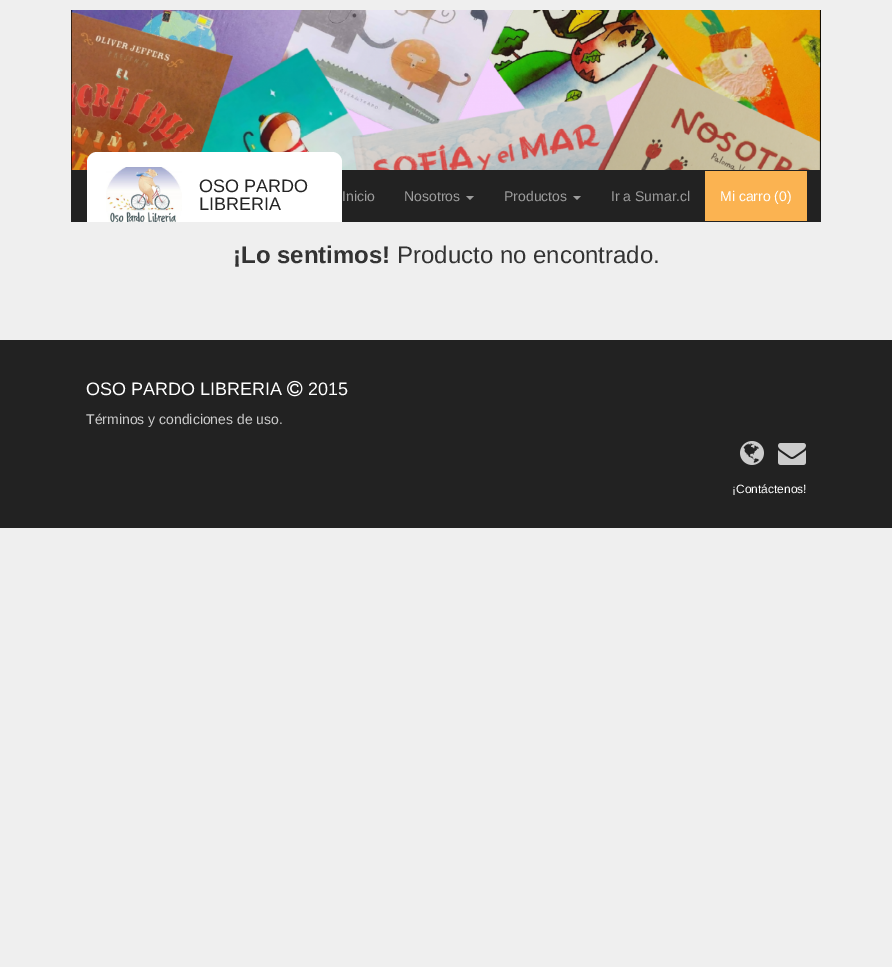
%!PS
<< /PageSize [892 967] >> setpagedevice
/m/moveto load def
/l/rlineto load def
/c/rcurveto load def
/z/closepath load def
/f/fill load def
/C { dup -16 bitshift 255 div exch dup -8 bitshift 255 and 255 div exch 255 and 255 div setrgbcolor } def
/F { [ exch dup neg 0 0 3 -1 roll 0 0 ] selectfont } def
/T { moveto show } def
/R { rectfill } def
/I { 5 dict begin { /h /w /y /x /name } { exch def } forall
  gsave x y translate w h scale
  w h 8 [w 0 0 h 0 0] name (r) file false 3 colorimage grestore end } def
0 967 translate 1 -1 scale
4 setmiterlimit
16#EFEFEF C
0 0 892 967 R
(1.rgb) 71 10 750 160 I
16#222222 C
71 170 750 52 R
16#FFFFFF C
97 152 m 235 0 l 5.5 0 10 4.5 10 10 c 0 60 l -255 0 l 0 -60 l 0 -5.5 4.5 -10 10 -10 c z f
(2.rgb) 106 167 76 55 I
/LiberationSans-Regular 18 F
16#242424 C
(OSO PARDO) 199 192 T
(LIBRERIA) 199 210 T
/LiberationSans-Regular 14 F
16#9D9D9D C
(Inicio) 342 201 T
(Nosotros) 404 201 T
466 196 m 8 0 l -4 4 l z f
(Productos) 504 201 T
573 196 m 8 0 l -4 4 l z f
(Ir a Sumar.cl) 611 201 T
16#FBB351 C
705 171 102 50 R
16#FFFFFF C
(Mi carro \(0\)) 720 201 T
/LiberationSans-Bold 24 F
16#333333 C
(¡Lo sentimos!) 233 263 T
/LiberationSans-Regular 24 F
(Producto no encontrado.) 397 263 T
16#222222 C
0 340 892 188 R
/LiberationSans-Regular 18 F
16#FFFFFF C
(OSO PARDO LIBRERIA) 86 395 T
(3.rgb) 287 380 16 17 I
(2015) 308 395 T
/LiberationSans-Regular 14 F
16#CCCCCC C
(Términos y condiciones de uso.) 86 424 T
(4.rgb) 740 441 24 24 I
(5.rgb) 778 443 28 22 I
/LiberationSans-Regular 12 F
16#FFFFFF C
(¡Contáctenos!) 732 493 T
showpage
